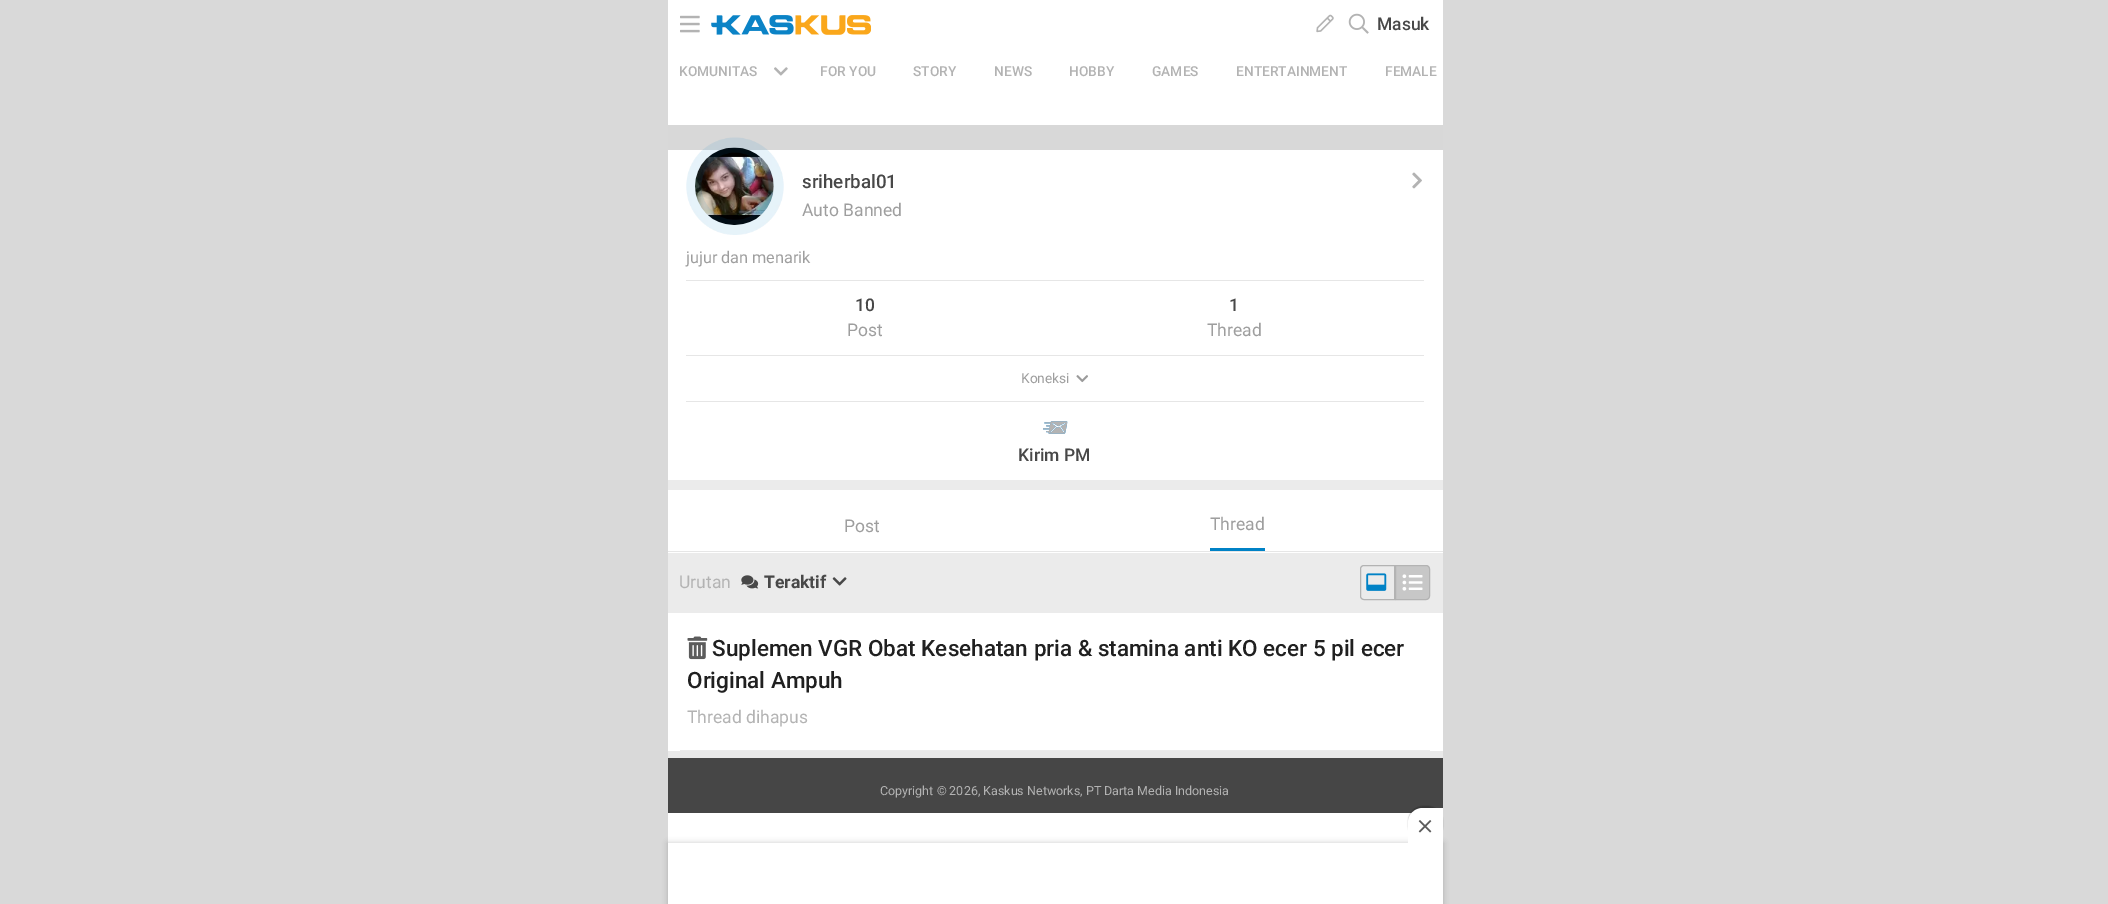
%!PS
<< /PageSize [2108 904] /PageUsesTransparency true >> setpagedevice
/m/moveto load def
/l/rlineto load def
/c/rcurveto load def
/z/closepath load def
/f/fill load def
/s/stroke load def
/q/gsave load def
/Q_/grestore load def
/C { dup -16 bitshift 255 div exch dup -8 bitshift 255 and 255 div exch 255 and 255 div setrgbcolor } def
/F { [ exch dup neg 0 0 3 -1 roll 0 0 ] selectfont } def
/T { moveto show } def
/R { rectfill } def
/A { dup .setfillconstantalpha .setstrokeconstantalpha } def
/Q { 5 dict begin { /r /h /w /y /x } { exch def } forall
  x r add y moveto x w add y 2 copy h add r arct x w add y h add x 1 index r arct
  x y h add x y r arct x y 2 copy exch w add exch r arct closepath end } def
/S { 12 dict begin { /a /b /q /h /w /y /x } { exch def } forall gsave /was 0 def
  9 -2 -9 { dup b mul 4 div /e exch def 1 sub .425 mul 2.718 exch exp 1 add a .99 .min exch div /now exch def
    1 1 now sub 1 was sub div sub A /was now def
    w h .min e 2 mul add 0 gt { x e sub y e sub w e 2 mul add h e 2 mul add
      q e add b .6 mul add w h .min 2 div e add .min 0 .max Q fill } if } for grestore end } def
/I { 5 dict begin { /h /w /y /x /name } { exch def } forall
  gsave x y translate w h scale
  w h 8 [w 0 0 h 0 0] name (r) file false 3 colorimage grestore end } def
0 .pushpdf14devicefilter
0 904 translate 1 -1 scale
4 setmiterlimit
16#D9D9D9 C
0 0 2108 904 R
16#FFFFFF C
668 0 775 843 R
(1.rgb) 680 15 20 18 I
(2.rgb) 711 15 160 20 I
(3.rgb) 1316 14 18 19 I
(4.rgb) 1348 13 21 21 I
/Roboto-Medium 17.5 F
16#484848 C
(Masuk) 1377 30 T
/Roboto-Medium 13.75 F
16#B3B3B3 C
(KOMUNITAS) 679 76 T
(5.rgb) 774 67 14 9 I
(FOR YOU) 820 76 T
(STORY) 913 76 T
(NEWS) 994 76 T
(HOBBY) 1069 76 T
(GAMES) 1152 76 T
(ENTERTAINMENT) 1236 76 T
(FEMALE) 1385 76 T
16#D8D8D8 C
668 125 775 25 R
(7.rgb) 695 147 79 78 I
(6.rgb) 686 137 98 98 I
/Roboto-Medium 18.75 F
16#484848 C
(sriherbal01) 802 188 T
/Roboto-Regular 17.5 F
16#9E9E9E C
(Auto Banned) 802 216 T
(8.rgb) 1412 172 10 17 I
16#EBEBEB C
668 480 775 10 R
/Roboto-Regular 16.25 F
16#9E9E9E C
(jujur dan menarik) 686 263 T
16#E6E6E6 C
686 280 738 1 R
/Roboto-Medium 17.5 F
16#484848 C
(10) 855 311 T
/Roboto-Regular 17.5 F
16#9E9E9E C
(Post) 847 336 T
/Roboto-Medium 17.5 F
16#484848 C
(1) 1229 311 T
/Roboto-Regular 17.5 F
16#9E9E9E C
(Thread) 1207 336 T
16#E6E6E6 C
686 355 738 1 R
/Roboto-Regular 13.75 F
16#9E9E9E C
(Koneksi) 1021 383 T
(9.rgb) 1076 375 12 8 I
16#E6E6E6 C
686 401 738 1 R
(10.rgb) 1043 421 25 13 I
/Roboto-Medium 17.5 F
16#484848 C
(Kirim PM) 1018 461 T
16#E6E6E6 C
668 551 775 1 R
/Roboto-Regular 17.5 F
16#9E9E9E C
(Post) 844 532 T
16#0082C6 C
1210 548 55 3 R
16#9E9E9E C
(Thread) 1210 530 T
16#EBEBEB C
668 553 775 60 R
16#B3B3B3 C
(Urutan) 679 588 T
(11.rgb) 741 575 18 14 I
/Roboto-Bold 17.5 F
16#484848 C
(Teraktif) 764 588 T
(12.rgb) 832 577 15 9 I
16#B3B3B3 C
1364 565.5 m 30.5 0 l 0 34 l -30.5 0 l -2 0 -3.5 -1.5 -3.5 -3.5 c 0 -27 l 0 -2 1.5 -3.5 3.5 -3.5 c z s
(13.rgb) 1366 573 21 18 I
16#C7C7C7 C
1395.5 565.5 m 30.5 0 l 2 0 3.5 1.5 3.5 3.5 c 0 27 l 0 2 -1.5 3.5 -3.5 3.5 c -30.5 0 l z q f Q_
16#B3B3B3 C
s
(14.rgb) 1402 574 21 17 I
16#EBEBEB C
680 750 750 1 R
(15.rgb) 687 636 21 24 I
/Roboto-Medium 22.5 F
16#202020 C
(Suplemen VGR Obat Kesehatan pria & stamina anti KO ecer 5 pil ecer) 712 656 T
(Original Ampuh) 687 688 T
/Roboto-Regular 17.5 F
16#B3B3B3 C
(Thread dihapus) 687 723 T
16#E9E9E9 C
668 751 775 7 R
16#464646 C
668 758 775 55 R
/Roboto-Regular 12.5 F
16#B3B3B3 C
(Copyright © 2026, Kaskus Networks, PT Darta Media Indonesia) 880 795 T
16#000000 C
668 843 775 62 0 3 .2 S
16#FFFFFF C
668 843 775 61 R
16#000000 C
1408 806 35 35 15 .5 .2 S
16#FFFFFF C
1423 808 m 20 0 l 0 35 l -35 0 l 0 -20 l 0 -8.5 6.5 -15 15 -15 c z f
(16.rgb) 1418 820 14 13 I
.poppdf14devicefilter showpage
